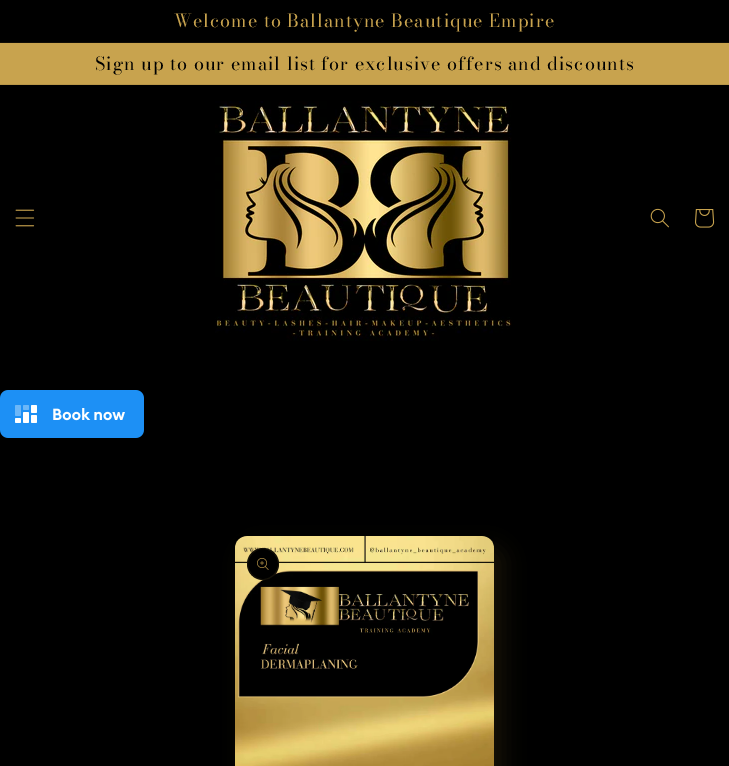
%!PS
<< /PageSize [729 766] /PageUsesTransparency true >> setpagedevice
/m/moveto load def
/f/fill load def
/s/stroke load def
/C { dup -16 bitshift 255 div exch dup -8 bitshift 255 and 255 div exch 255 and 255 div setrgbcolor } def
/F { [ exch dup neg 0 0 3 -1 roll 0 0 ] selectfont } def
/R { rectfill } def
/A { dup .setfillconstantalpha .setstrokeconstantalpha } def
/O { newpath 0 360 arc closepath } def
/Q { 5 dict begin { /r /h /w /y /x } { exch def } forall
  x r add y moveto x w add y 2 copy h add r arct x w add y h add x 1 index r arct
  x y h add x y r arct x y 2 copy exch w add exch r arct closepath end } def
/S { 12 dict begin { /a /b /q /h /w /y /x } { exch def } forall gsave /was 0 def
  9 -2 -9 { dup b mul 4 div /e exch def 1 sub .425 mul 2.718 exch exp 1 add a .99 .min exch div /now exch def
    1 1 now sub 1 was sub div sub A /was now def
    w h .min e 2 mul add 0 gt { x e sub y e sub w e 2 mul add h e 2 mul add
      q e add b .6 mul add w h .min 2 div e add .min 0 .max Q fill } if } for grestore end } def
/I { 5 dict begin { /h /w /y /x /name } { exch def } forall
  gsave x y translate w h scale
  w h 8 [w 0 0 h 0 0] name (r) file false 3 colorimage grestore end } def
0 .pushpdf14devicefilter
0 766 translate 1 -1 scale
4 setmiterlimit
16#000000 C
0 0 729 766 R
16#100D06 C
0 42 729 1 R
/BodoniModa-Regular 18 F
16#C8A34E C
174 27 m 1 0 (Welcome to Ballantyne Beautique Empire) ashow
0 43 729 41 R
16#B89648 C
0 84 729 1 R
16#000000 C
95 70 m 1 0 (Sign up to our email list for exclusive offers and discounts) ashow
(1.rgb) 15 209 20 18 I
(2.rgb) 215 101 297 240 I
(3.rgb) 650 208 19 20 I
(4.rgb) 695 209 20 19 I
(5.rgb) 0 390 144 48 I
16#C8A34E C
245 548 259 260 12 10 .1 S
(6.rgb) 235 536 259 230 I
16#000000 C
263 564 16 O f
0.1 A
16#C8A34E C
263 564 15.5 O s
1 A
(7.rgb) 257 558 12 12 I
.poppdf14devicefilter showpage
